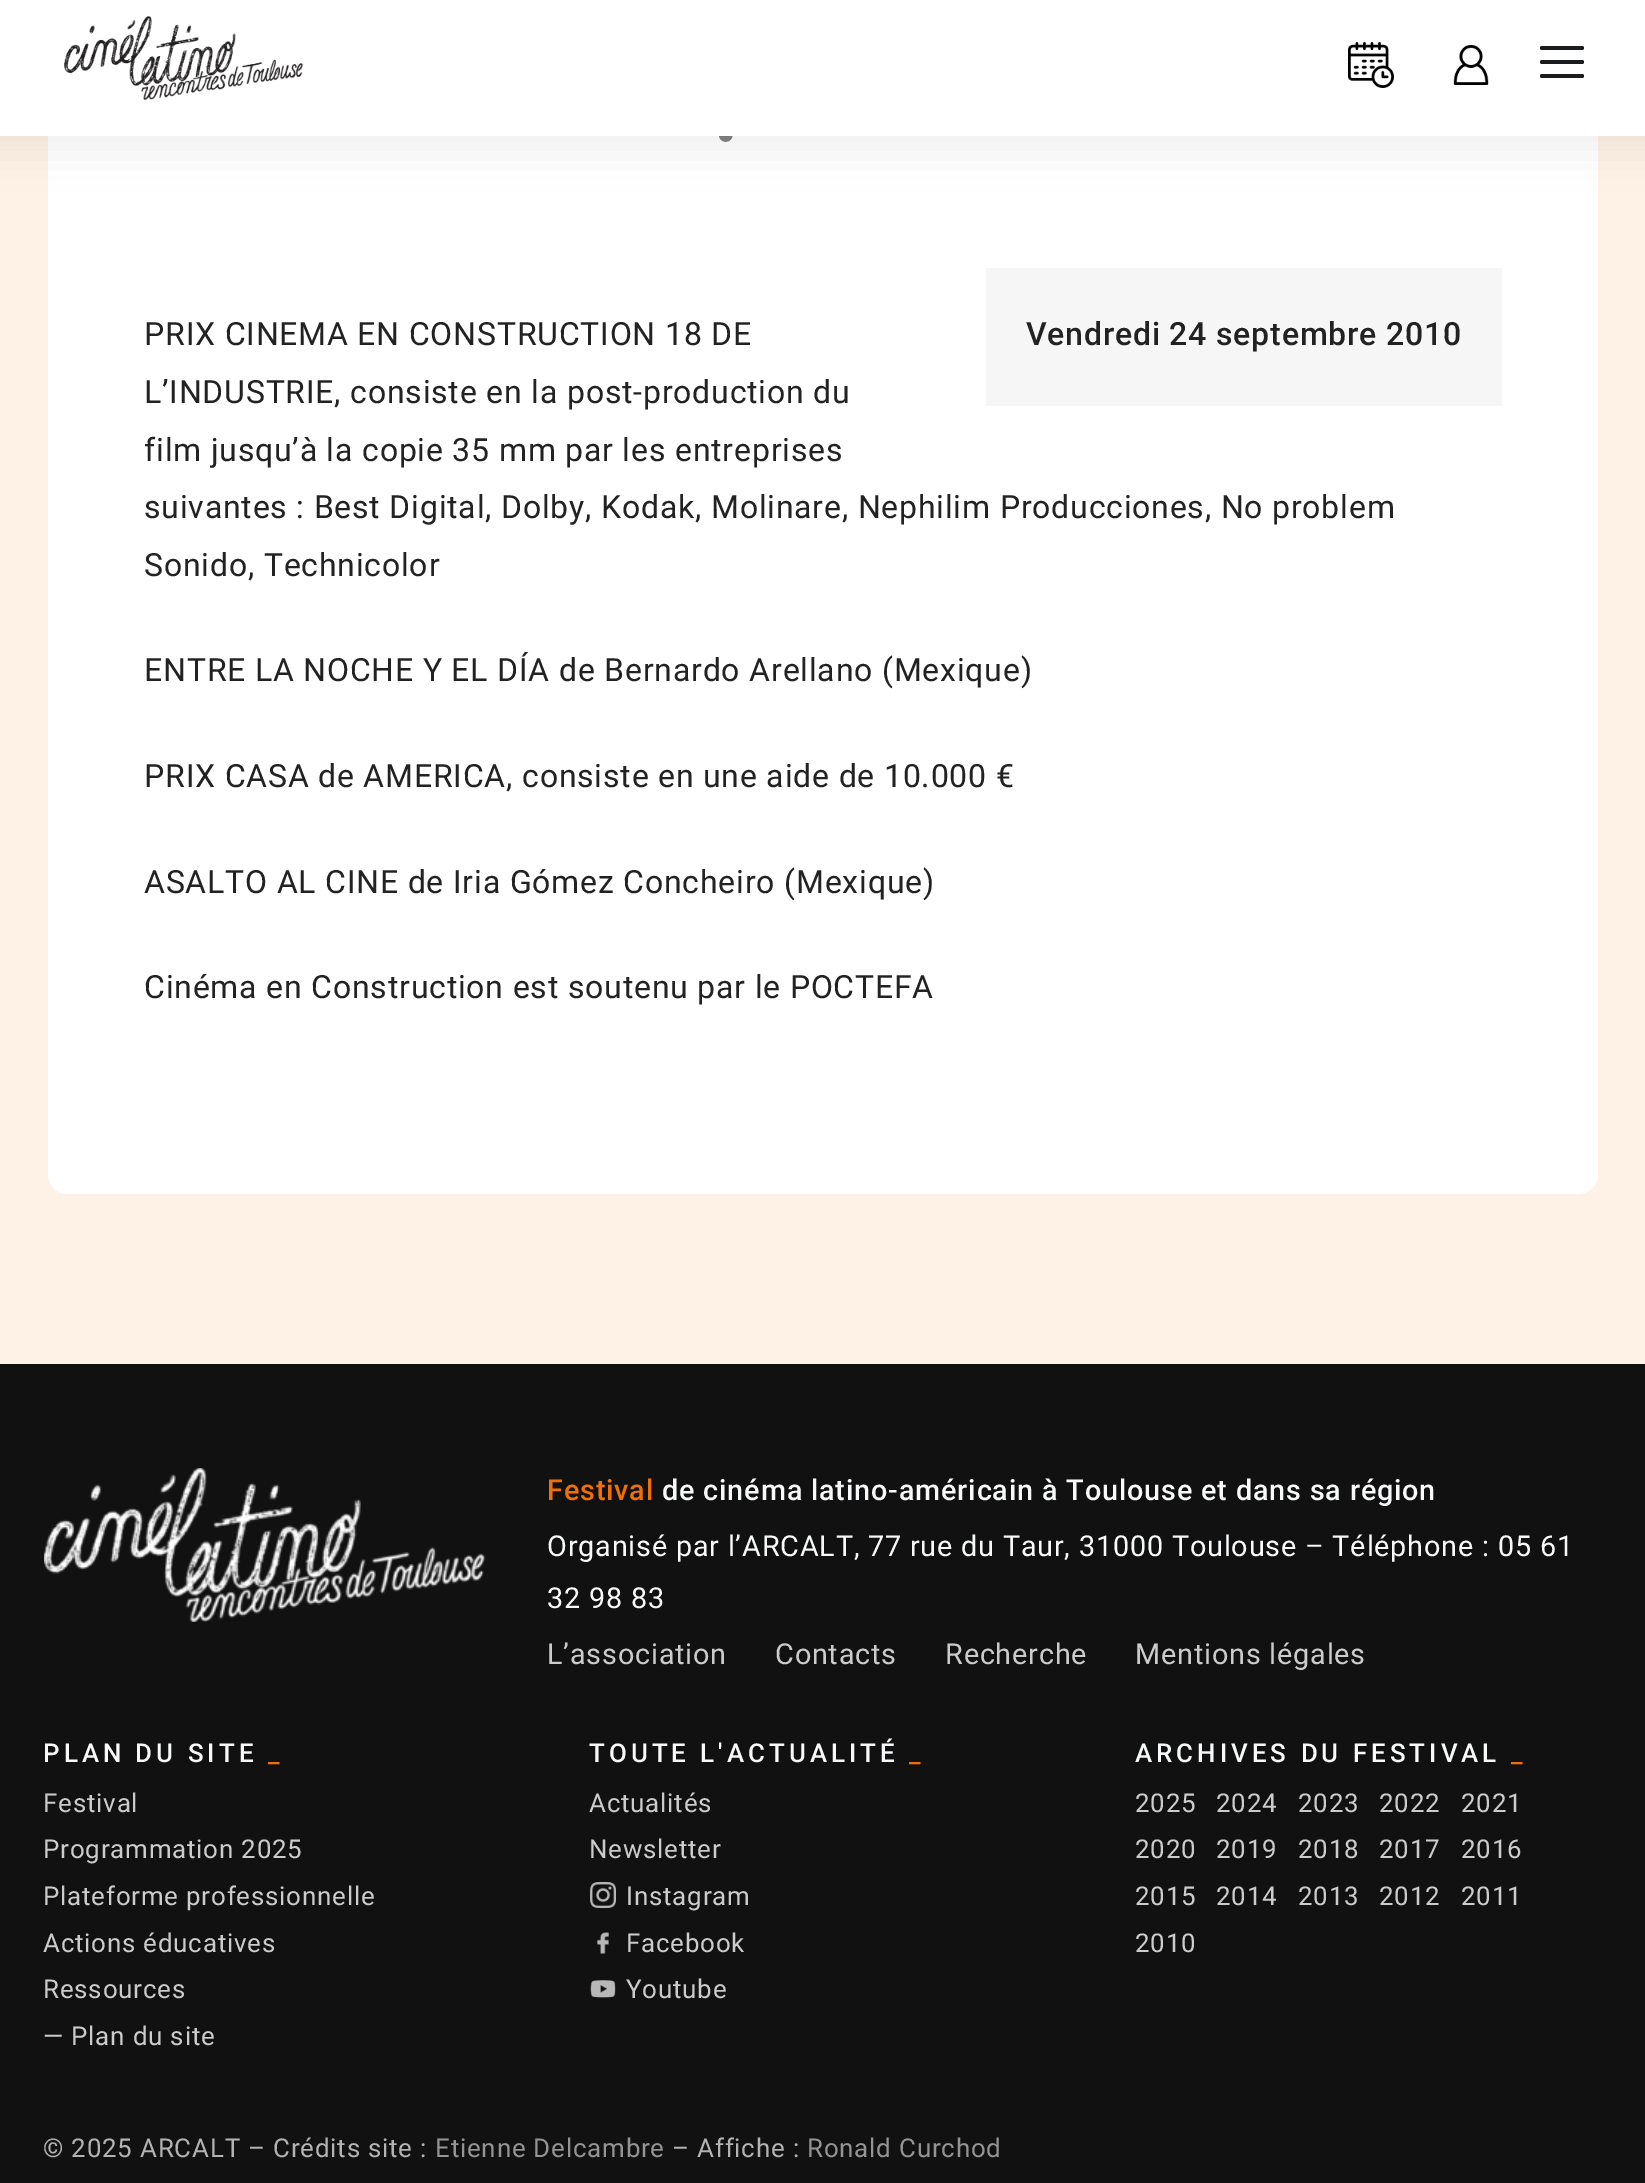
%!PS
<< /PageSize [1645 2183] /PageUsesTransparency true >> setpagedevice
/m/moveto load def
/f/fill load def
/C { dup -16 bitshift 255 div exch dup -8 bitshift 255 and 255 div exch 255 and 255 div setrgbcolor } def
/F { [ exch dup neg 0 0 3 -1 roll 0 0 ] selectfont } def
/R { rectfill } def
/A { dup .setfillconstantalpha .setstrokeconstantalpha } def
/Q { 5 dict begin { /r /h /w /y /x } { exch def } forall
  x r add y moveto x w add y 2 copy h add r arct x w add y h add x 1 index r arct
  x y h add x y r arct x y 2 copy exch w add exch r arct closepath end } def
/S { 12 dict begin { /a /b /q /h /w /y /x } { exch def } forall gsave /was 0 def
  9 -2 -9 { dup b mul 4 div /e exch def 1 sub .425 mul 2.718 exch exp 1 add a .99 .min exch div /now exch def
    1 1 now sub 1 was sub div sub A /was now def
    w h .min e 2 mul add 0 gt { x e sub y e sub w e 2 mul add h e 2 mul add
      q e add b .6 mul add w h .min 2 div e add .min 0 .max Q fill } if } for grestore end } def
/I { 5 dict begin { /h /w /y /x /name } { exch def } forall
  gsave x y translate w h scale
  w h 8 [w 0 0 h 0 0] name (r) file false 3 colorimage grestore end } def
0 .pushpdf14devicefilter
0 2183 translate 1 -1 scale
4 setmiterlimit
16#FEF2E7 C
0 0 1645 2183 R
16#FFFFFF C
48 -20 1550 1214 20 Q f
(4.rgb) 719 136 14 6 I
16#000000 C
-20 -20 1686 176 0 20 .05 S
16#FFFFFF C
0 0 1645 136 R
(1.rgb) 64 16 240 84 I
(2.rgb) 1348 42 46 46 I
(3.rgb) 1453 45 36 40 I
16#1A1C1E C
1540 46 44 4 2 Q f
1540 60 44 4 2 Q f
1540 74 44 4 2 Q f
/Roboto-Regular 32 F
16#222222 C
144 345 m .8 0 (PRIX CINEMA EN CONSTRUCTION 18 DE) ashow
144 403 m .8 0 (L’INDUSTRIE, consiste en la post-production du) ashow
144 461 m .8 0 (film jusqu’à la copie 35 mm par les entreprises) ashow
144 518 m .8 0 (suivantes : Best Digital, Dolby, Kodak, Molinare, Nephilim Producciones, No problem) ashow
144 576 m .8 0 (Sonido, Technicolor) ashow
16#F6F6F6 C
986 268 516 138 R
/Roboto-Medium 32 F
16#222222 C
1026 345 m .8 0 (Vendredi 24 septembre 2010) ashow
/Roboto-Regular 32 F
144 681 m .8 0 (ENTRE LA NOCHE Y EL DÍA de Bernardo Arellano \(Mexique\)) ashow
144 787 m .8 0 (PRIX CASA de AMERICA, consiste en une aide de 10.000 €) ashow
144 893 m .8 0 (ASALTO AL CINE de Iria Gómez Concheiro \(Mexique\)) ashow
144 998 m .8 0 (Cinéma en Construction est soutenu par le POCTEFA) ashow
16#111111 C
0 1364 1645 819 R
(5.rgb) 44 1468 442 154 I
/Roboto-Medium 28.8 F
16#F07005 C
547 1500 m .85 0 (Festival) ashow
16#F8F9FA C
662 1500 m .85 0 (de cinéma latino-américain à Toulouse et dans sa région) ashow
/Roboto-Regular 28.8 F
547 1556 m .8 0 (Organisé par l’ARCALT, 77 rue du Taur, 31000 Toulouse – Téléphone : 05 61) ashow
547 1608 m .8 0 (32 98 83) ashow
16#CCCCCC C
547 1664 m .8 0 (L’association) ashow
775 1664 m .8 0 (Contacts) ashow
945 1664 m .8 0 (Recherche) ashow
1135 1664 m .8 0 (Mentions légales) ashow
/Roboto-Medium 25.9 F
16#F8F9FA C
43 1762 m 4 0 (PLAN DU SITE) ashow
16#F07005 C
268 1762 m 4 0 (_) ashow
/Roboto-Regular 25.9 F
16#CCCCCC C
43 1812 m .8 0 (Festival) ashow
43 1858 m .8 0 (Programmation 2025) ashow
43 1905 m .8 0 (Plateforme professionnelle) ashow
43 1952 m .8 0 (Actions éducatives) ashow
43 1998 m .8 0 (Ressources) ashow
43 2045 m .8 0 (— Plan du site) ashow
/Roboto-Medium 25.9 F
16#F8F9FA C
589 1762 m 4 0 (TOUTE L'ACTUALITÉ) ashow
16#F07005 C
909 1762 m 4 0 (_) ashow
/Roboto-Regular 25.9 F
16#CCCCCC C
589 1812 m .8 0 (Actualités) ashow
589 1858 m .8 0 (Newsletter) ashow
(6.rgb) 590 1882 26 26 I
626 1905 m .8 0 (Instagram) ashow
(7.rgb) 597 1932 12 22 I
626 1952 m .8 0 (Facebook) ashow
(8.rgb) 590 1980 26 18 I
626 1998 m .8 0 (Youtube) ashow
/Roboto-Medium 25.9 F
16#F8F9FA C
1135 1762 m 4 0 (ARCHIVES DU FESTIVAL) ashow
16#F07005 C
1511 1762 m 4 0 (_) ashow
/Roboto-Regular 25.9 F
16#CCCCCC C
1135 1812 m .8 0 (2025) ashow
1216 1812 m .8 0 (2024) ashow
1298 1812 m .8 0 (2023) ashow
1379 1812 m .8 0 (2022) ashow
1461 1812 m .8 0 (2021) ashow
1135 1858 m .8 0 (2020) ashow
1216 1858 m .8 0 (2019) ashow
1298 1858 m .8 0 (2018) ashow
1379 1858 m .8 0 (2017) ashow
1461 1858 m .8 0 (2016) ashow
1135 1905 m .8 0 (2015) ashow
1216 1905 m .8 0 (2014) ashow
1298 1905 m .8 0 (2013) ashow
1379 1905 m .8 0 (2012) ashow
1461 1905 m .8 0 (2011) ashow
1135 1952 m .8 0 (2010) ashow
16#B3B3B4 C
43 2157 m .8 0 (© 2025 ARCALT – Crédits site :) ashow
16#949494 C
435 2157 m .8 0 (Etienne Delcambre) ashow
16#B3B3B4 C
672 2157 m .8 0 (– Affiche :) ashow
16#949494 C
807 2157 m .8 0 (Ronald Curchod) ashow
.poppdf14devicefilter showpage
